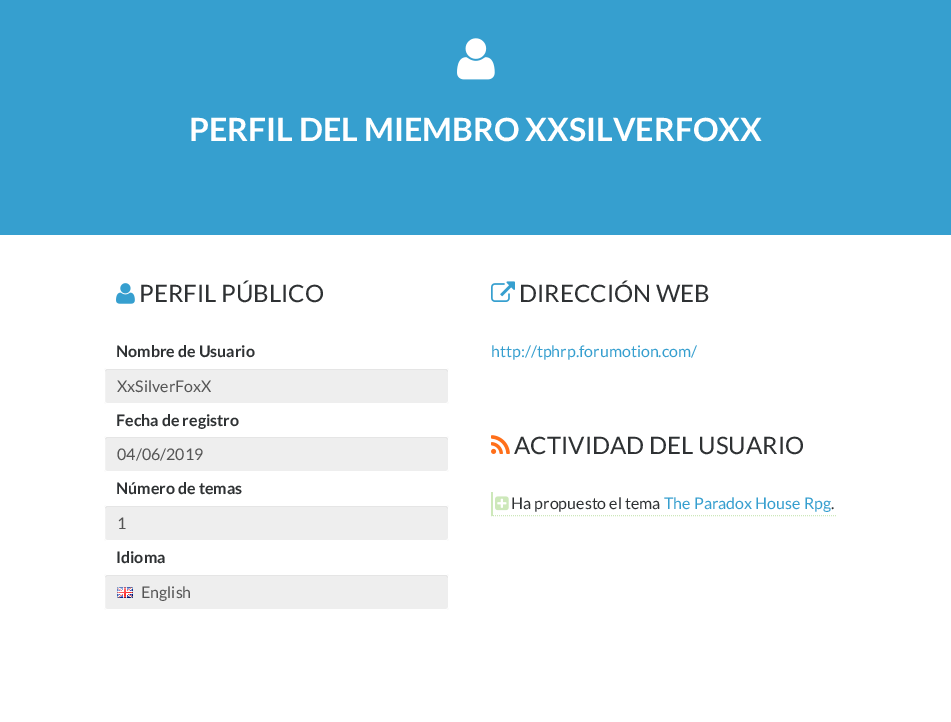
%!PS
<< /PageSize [951 722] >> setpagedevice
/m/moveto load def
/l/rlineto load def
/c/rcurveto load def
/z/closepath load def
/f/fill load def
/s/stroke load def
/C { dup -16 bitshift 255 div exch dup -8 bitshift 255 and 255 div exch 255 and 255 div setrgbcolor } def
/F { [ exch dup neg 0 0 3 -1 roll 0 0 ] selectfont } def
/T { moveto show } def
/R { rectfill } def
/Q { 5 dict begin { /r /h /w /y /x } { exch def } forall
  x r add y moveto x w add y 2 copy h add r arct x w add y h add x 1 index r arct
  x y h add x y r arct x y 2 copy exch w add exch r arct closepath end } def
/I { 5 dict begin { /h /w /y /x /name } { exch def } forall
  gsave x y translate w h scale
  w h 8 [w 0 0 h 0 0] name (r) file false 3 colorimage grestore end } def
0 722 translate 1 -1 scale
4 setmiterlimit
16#FFFFFF C
0 0 951 722 R
16#369FCF C
0 0 951 235 R
(1.rgb) 457 38 38 42 I
/Lato-Bold 32 F
16#FFFFFF C
(PERFIL DEL MIEMBRO XXSILVERFOXX) 189 141 T
(2.rgb) 116 283 19 21 I
/Lato-Regular 24 F
16#2E3133 C
(PERFIL PÚBLICO) 139 302 T
/Lato-Bold 16 F
(Nombre de Usuario) 116 357 T
16#EEEEEE C
104 368 345 36 3 Q f
16#DCDCDC C
107 370 m 339 0 l 1 0 2 1 2 2 c 0 -1 0 -3 -2 -3 c -339 0 l -2 1 l 0 2 l 0 -1 1 -2 2 -2 c z f
16#FFFFFF C
104.5 368.5 344 35 2.5 Q s
/Lato-Regular 16 F
16#555555 C
(XxSilverFoxX) 117 392 T
/Lato-Bold 16 F
16#2E3133 C
(Fecha de registro) 116 426 T
16#EEEEEE C
104 436 345 36 3 Q f
16#DCDCDC C
107 438 m 339 0 l 1 0 2 1 2 2 c 0 -1 0 -3 -2 -3 c -339 0 l -2 1 l 0 2 l 0 -1 1 -2 2 -2 c z f
16#FFFFFF C
104.5 436.5 344 35 2.5 Q s
/Lato-Regular 16 F
16#555555 C
(04/06/2019) 117 460 T
/Lato-Bold 16 F
16#2E3133 C
(Número de temas) 116 494 T
16#EEEEEE C
104 505 345 36 3 Q f
16#DCDCDC C
107 507 m 339 0 l 1 0 2 1 2 2 c 0 -1 0 -3 -2 -3 c -339 0 l -2 1 l 0 2 l 0 -1 1 -2 2 -2 c z f
16#FFFFFF C
104.5 505.5 344 35 2.5 Q s
/Lato-Regular 16 F
16#555555 C
(1) 117 529 T
/Lato-Bold 16 F
16#2E3133 C
(Idioma) 116 563 T
16#EEEEEE C
104 574 345 36 3 Q f
16#DCDCDC C
107 576 m 339 0 l 1 0 2 1 2 2 c 0 -1 0 -3 -2 -3 c -339 0 l -2 1 l 0 2 l 0 -1 1 -2 2 -2 c z f
16#FFFFFF C
104.5 574.5 344 35 2.5 Q s
(3.rgb) 117 587 16 11 I
/Lato-Regular 16 F
16#555555 C
(English) 141 598 T
(4.rgb) 491 281 24 21 I
/Lato-Regular 24 F
16#2E3133 C
(DIRECCIÓN WEB) 519 302 T
/Lato-Regular 16 F
16#369FCF C
(http://tphrp.forumotion.com/) 491 357 T
(5.rgb) 491 435 19 19 I
/Lato-Regular 24 F
16#2E3133 C
(ACTIVIDAD DEL USUARIO) 514 454 T
16#CDE8BA C
[1 1] 0 setdash
491 515.5 m 345 0 l s
491 492 2 24 R
(6.rgb) 495 496 14 15 I
/Lato-Regular 16 F
16#2E3133 C
(Ha propuesto el tema) 511 509 T
16#369FCF C
(The Paradox House Rpg) 664 509 T
16#2E3133 C
(.) 831 509 T
showpage
